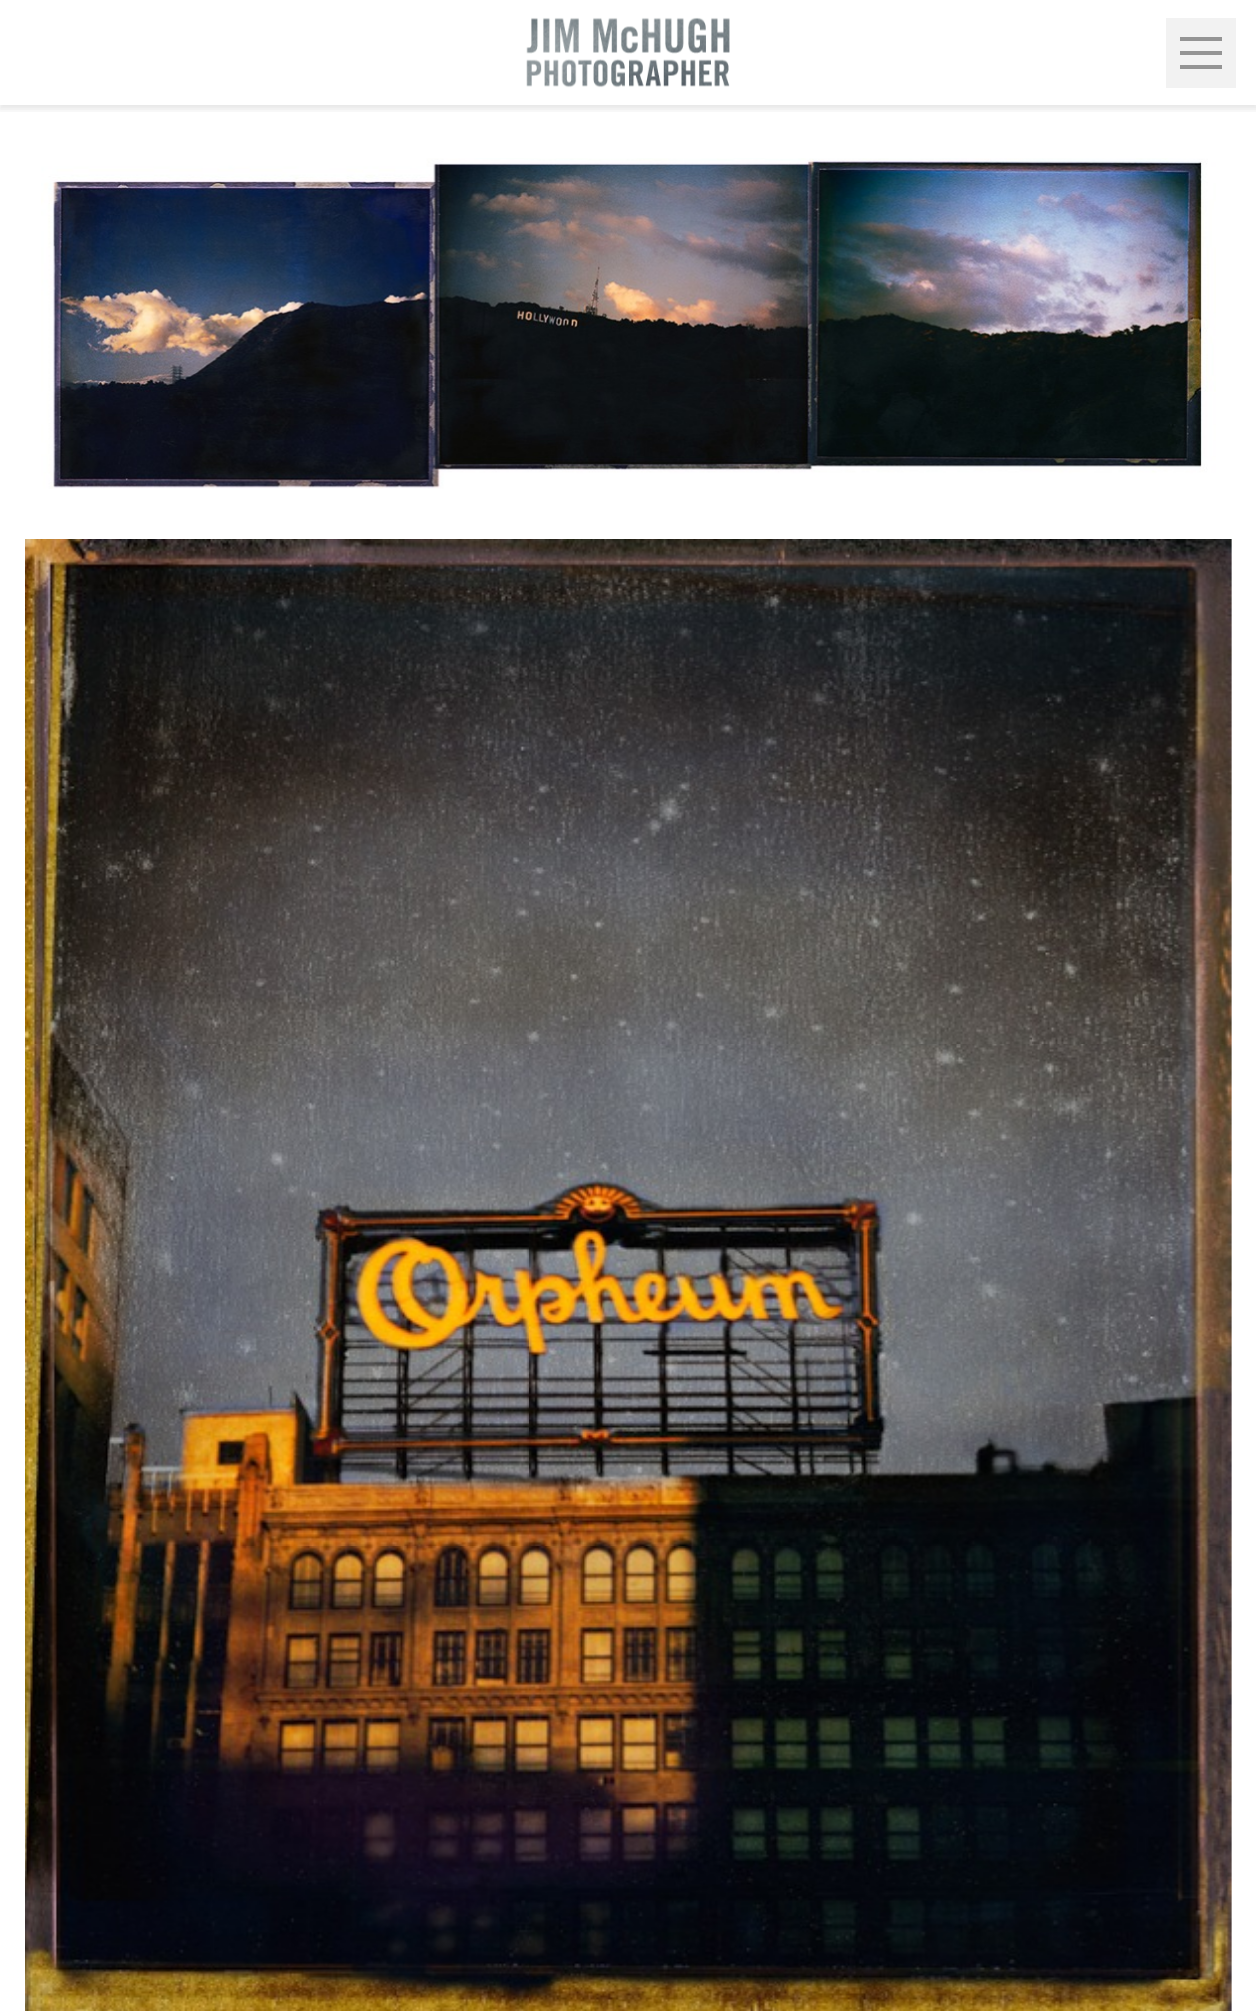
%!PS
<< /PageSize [1256 2011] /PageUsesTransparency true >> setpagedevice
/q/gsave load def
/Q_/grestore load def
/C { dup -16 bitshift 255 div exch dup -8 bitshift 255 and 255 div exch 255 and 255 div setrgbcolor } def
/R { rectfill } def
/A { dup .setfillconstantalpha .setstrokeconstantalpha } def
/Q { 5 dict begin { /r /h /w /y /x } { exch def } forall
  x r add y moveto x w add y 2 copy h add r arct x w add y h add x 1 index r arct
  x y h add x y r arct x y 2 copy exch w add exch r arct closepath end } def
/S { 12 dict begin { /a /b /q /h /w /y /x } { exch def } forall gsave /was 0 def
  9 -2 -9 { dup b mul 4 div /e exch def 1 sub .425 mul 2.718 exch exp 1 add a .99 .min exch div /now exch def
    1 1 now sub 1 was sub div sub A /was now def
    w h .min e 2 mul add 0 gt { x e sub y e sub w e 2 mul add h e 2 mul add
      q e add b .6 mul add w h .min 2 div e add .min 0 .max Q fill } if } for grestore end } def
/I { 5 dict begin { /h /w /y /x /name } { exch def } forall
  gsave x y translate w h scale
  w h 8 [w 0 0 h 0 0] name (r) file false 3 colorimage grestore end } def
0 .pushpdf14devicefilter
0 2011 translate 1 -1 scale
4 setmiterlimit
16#FFFFFF C
0 0 1256 2011 R
q
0 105 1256 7 rectclip
16#000000 C
0 4 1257 105 0 3.5 .1 S
Q_
(1.rgb) 526 17 204 71 I
16#F2F2F2 C
1166 18 70 70 R
16#949494 C
1180 37 42 4 R
1180 51 42 4 R
1180 65 42 4 R
(2.rgb) 41 158 1175 331 I
(3.rgb) 25 539 1207 1472 I
.poppdf14devicefilter showpage
